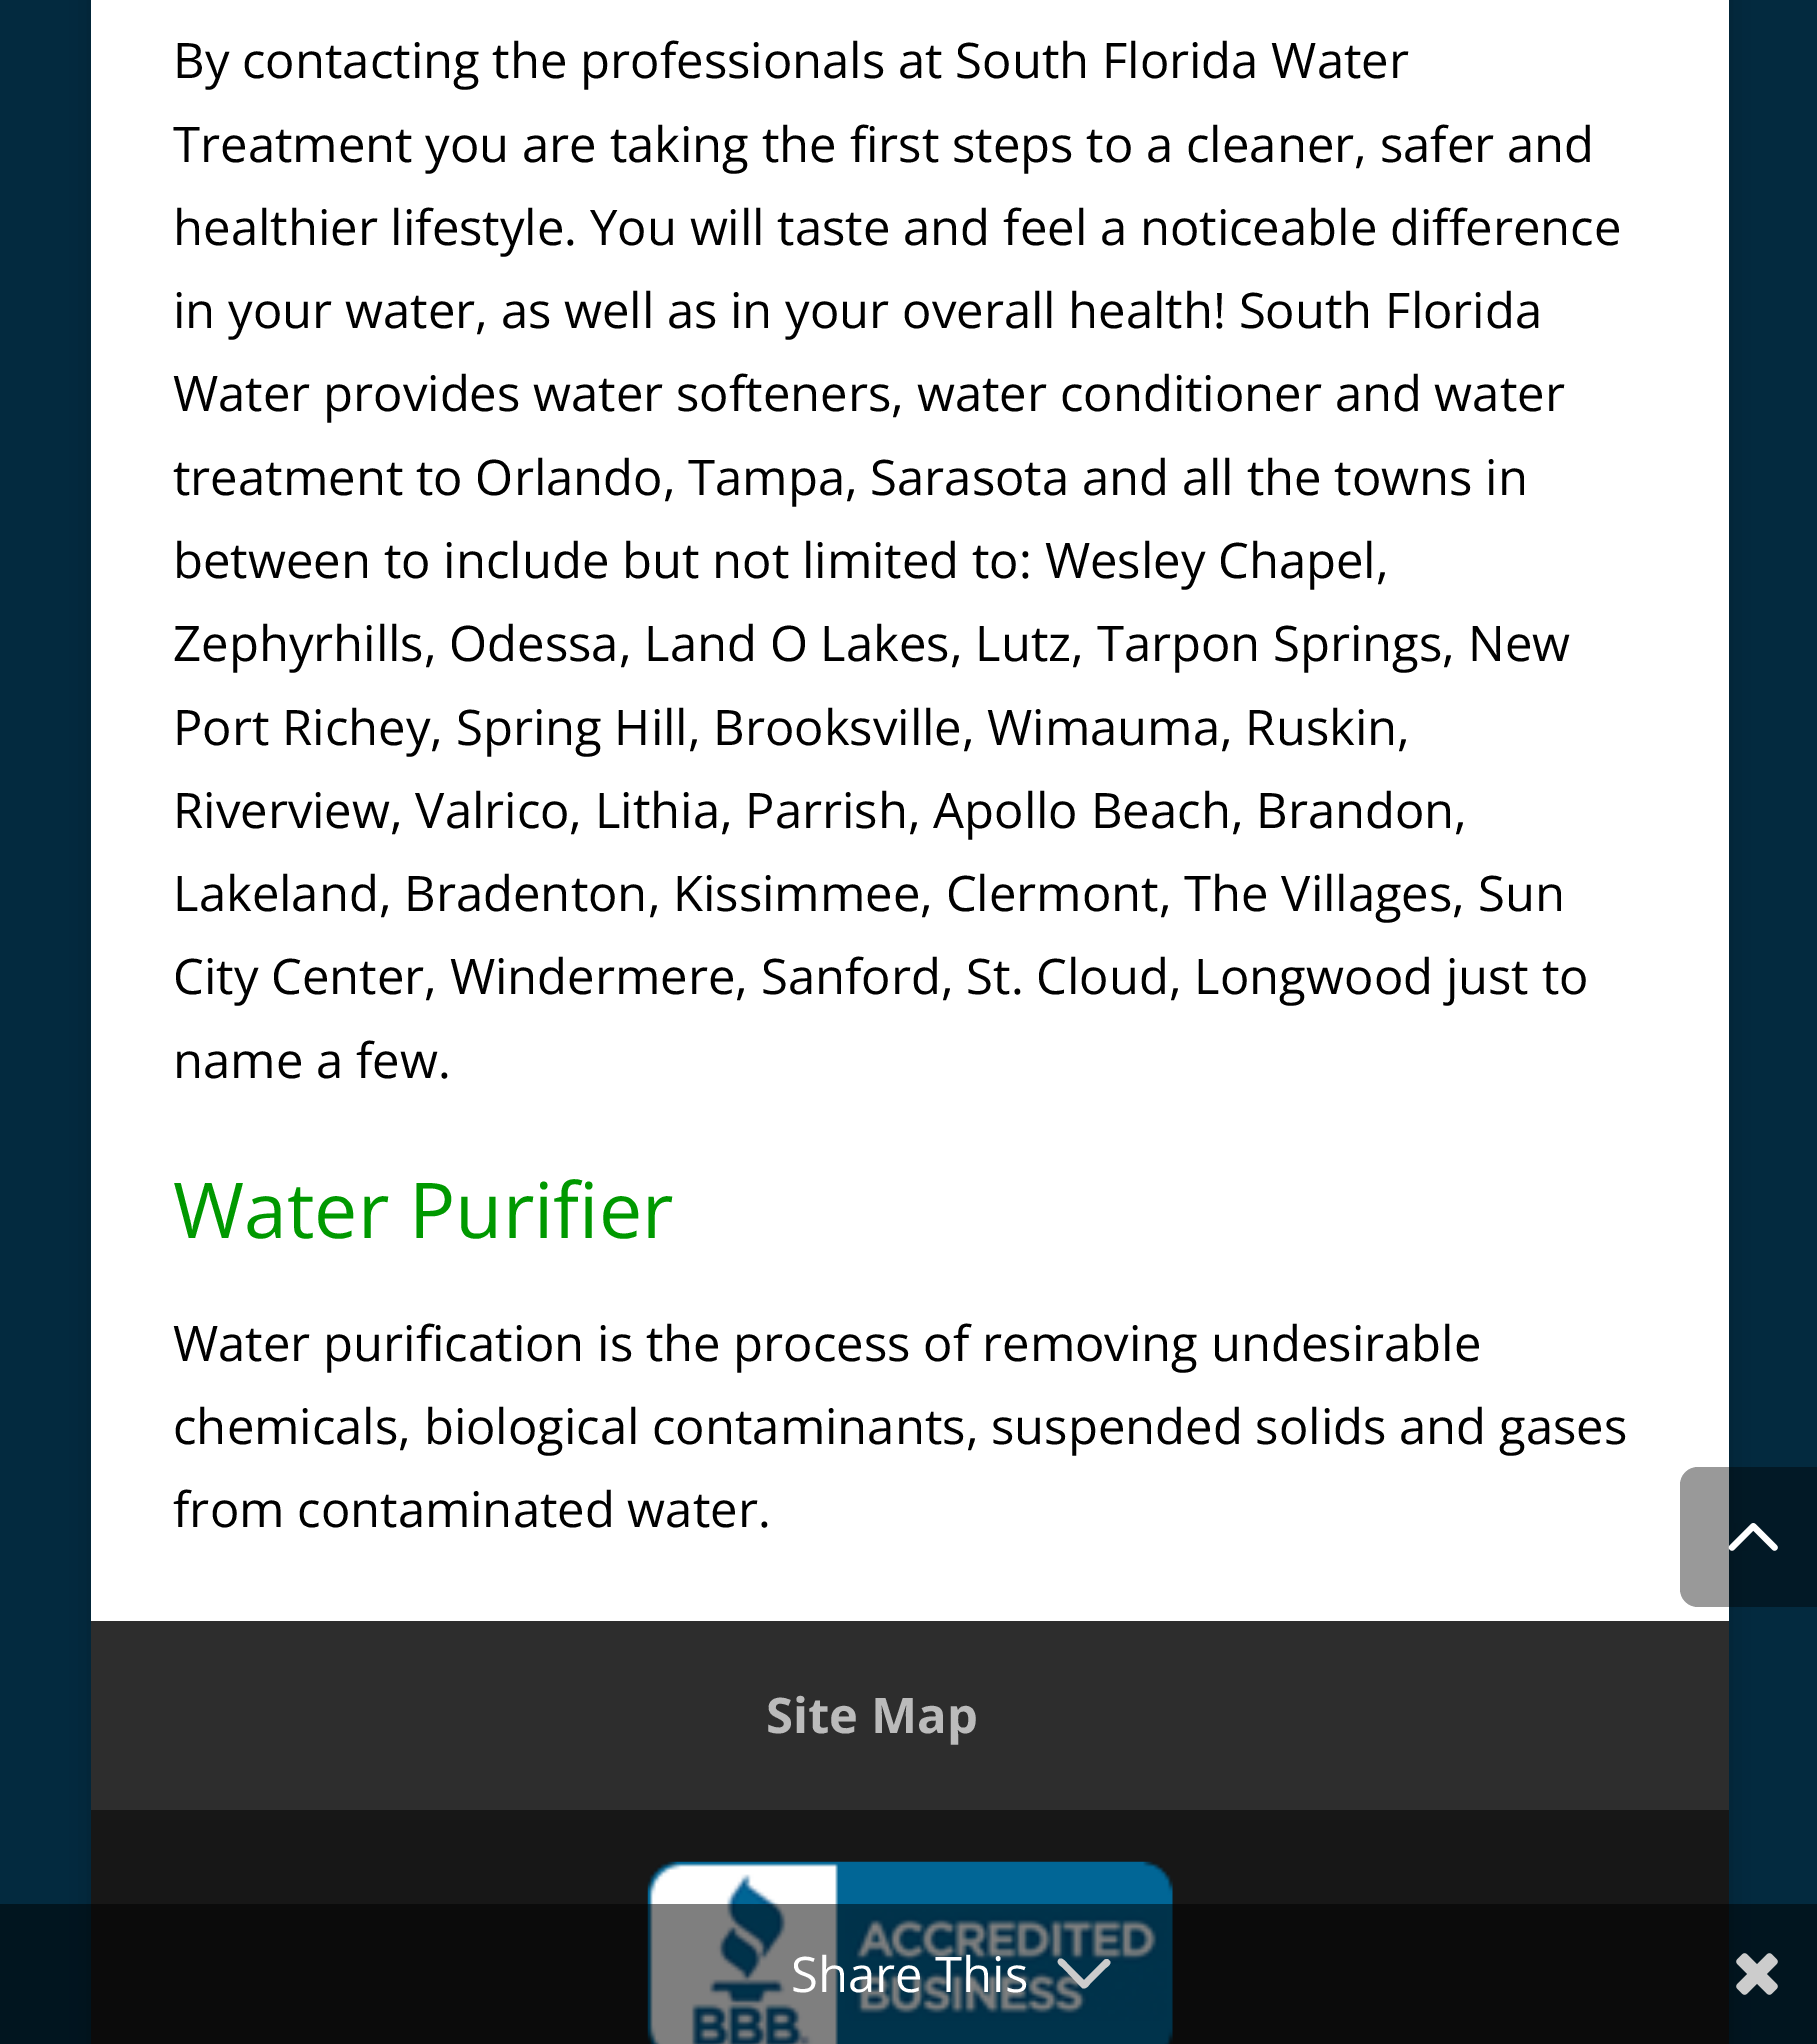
%!PS
<< /PageSize [1817 2044] /PageUsesTransparency true >> setpagedevice
/m/moveto load def
/l/rlineto load def
/c/rcurveto load def
/z/closepath load def
/f/fill load def
/C { dup -16 bitshift 255 div exch dup -8 bitshift 255 and 255 div exch 255 and 255 div setrgbcolor } def
/F { [ exch dup neg 0 0 3 -1 roll 0 0 ] selectfont } def
/T { moveto show } def
/R { rectfill } def
/A { dup .setfillconstantalpha .setstrokeconstantalpha } def
/Q { 5 dict begin { /r /h /w /y /x } { exch def } forall
  x r add y moveto x w add y 2 copy h add r arct x w add y h add x 1 index r arct
  x y h add x y r arct x y 2 copy exch w add exch r arct closepath end } def
/S { 12 dict begin { /a /b /q /h /w /y /x } { exch def } forall gsave /was 0 def
  9 -2 -9 { dup b mul 4 div /e exch def 1 sub .425 mul 2.718 exch exp 1 add a .99 .min exch div /now exch def
    1 1 now sub 1 was sub div sub A /was now def
    w h .min e 2 mul add 0 gt { x e sub y e sub w e 2 mul add h e 2 mul add
      q e add b .6 mul add w h .min 2 div e add .min 0 .max Q fill } if } for grestore end } def
/I { 5 dict begin { /h /w /y /x /name } { exch def } forall
  gsave x y translate w h scale
  w h 8 [w 0 0 h 0 0] name (r) file false 3 colorimage grestore end } def
0 .pushpdf14devicefilter
0 2044 translate 1 -1 scale
4 setmiterlimit
16#032A3F C
0 0 1817 2044 R
16#000000 C
91 -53 1638 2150 0 17.5 .2 S
16#FFFFFF C
91 0 1638 1621 R
/OpenSans-Regular 49 F
16#000000 C
(By contacting the professionals at South Florida Water) 173 78 T
(Treatment you are taking the first steps to a cleaner, safer and) 173 162 T
(healthier lifestyle. You will taste and feel a noticeable difference) 173 245 T
(in your water, as well as in your overall health! South Florida) 173 328 T
(Water provides water softeners, water conditioner and water) 173 411 T
(treatment to Orlando, Tampa, Sarasota and all the towns in) 173 495 T
(between to include but not limited to: Wesley Chapel,) 173 578 T
(Zephyrhills, Odessa, Land O Lakes, Lutz, Tarpon Springs, New) 173 661 T
(Port Richey, Spring Hill, Brooksville, Wimauma, Ruskin,) 173 745 T
(Riverview, Valrico, Lithia, Parrish, Apollo Beach, Brandon,) 173 828 T
(Lakeland, Bradenton, Kissimmee, Clermont, The Villages, Sun) 173 911 T
(City Center, Windermere, Sanford, St. Cloud, Longwood just to) 173 994 T
(name a few.) 173 1078 T
/OpenSans-Regular 77 F
16#009900 C
(Water Purifier) 173 1238 T
/OpenSans-Regular 49 F
16#000000 C
(Water purification is the process of removing undesirable) 173 1361 T
(chemicals, biological contaminants, suspended solids and gases) 173 1444 T
(from contaminated water.) 173 1527 T
0.4 A
1698 1467 m 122 0 l 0 140 l -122 0 l -10 0 -18 -8 -18 -18 c 0 -104 l 0 -10 8 -18 18 -18 c z f
1 A
(1.rgb) 1728 1523 50 28 I
16#2D2D2D C
91 1621 1638 189 R
/OpenSans-Bold 49 F
16#BBBBBB C
(Site Map) 766 1733 T
16#171717 C
91 1810 1638 234 R
(2.rgb) 647 1861 526 183 I
0.5 A
16#000000 C
0 1904 1817 140 R
/OpenSans-Regular 49 F
1 A
16#FFFFFF C
(Share This) 791 1992 T
16#CCCCCC C
1104 1960 m -20 20 l -17 -17 l -2 -2 -5 -6 -8 -4 c -4 4 2 7 4 9 c 19 20 l 4 2 7 -3 8 -4 c 16 -16 l 1 -1 6 -4 4 -7 c -2 -2 l -2 0 -3 0 -4 1 c z f
(3.rgb) 1736 1953 42 42 I
.poppdf14devicefilter showpage
